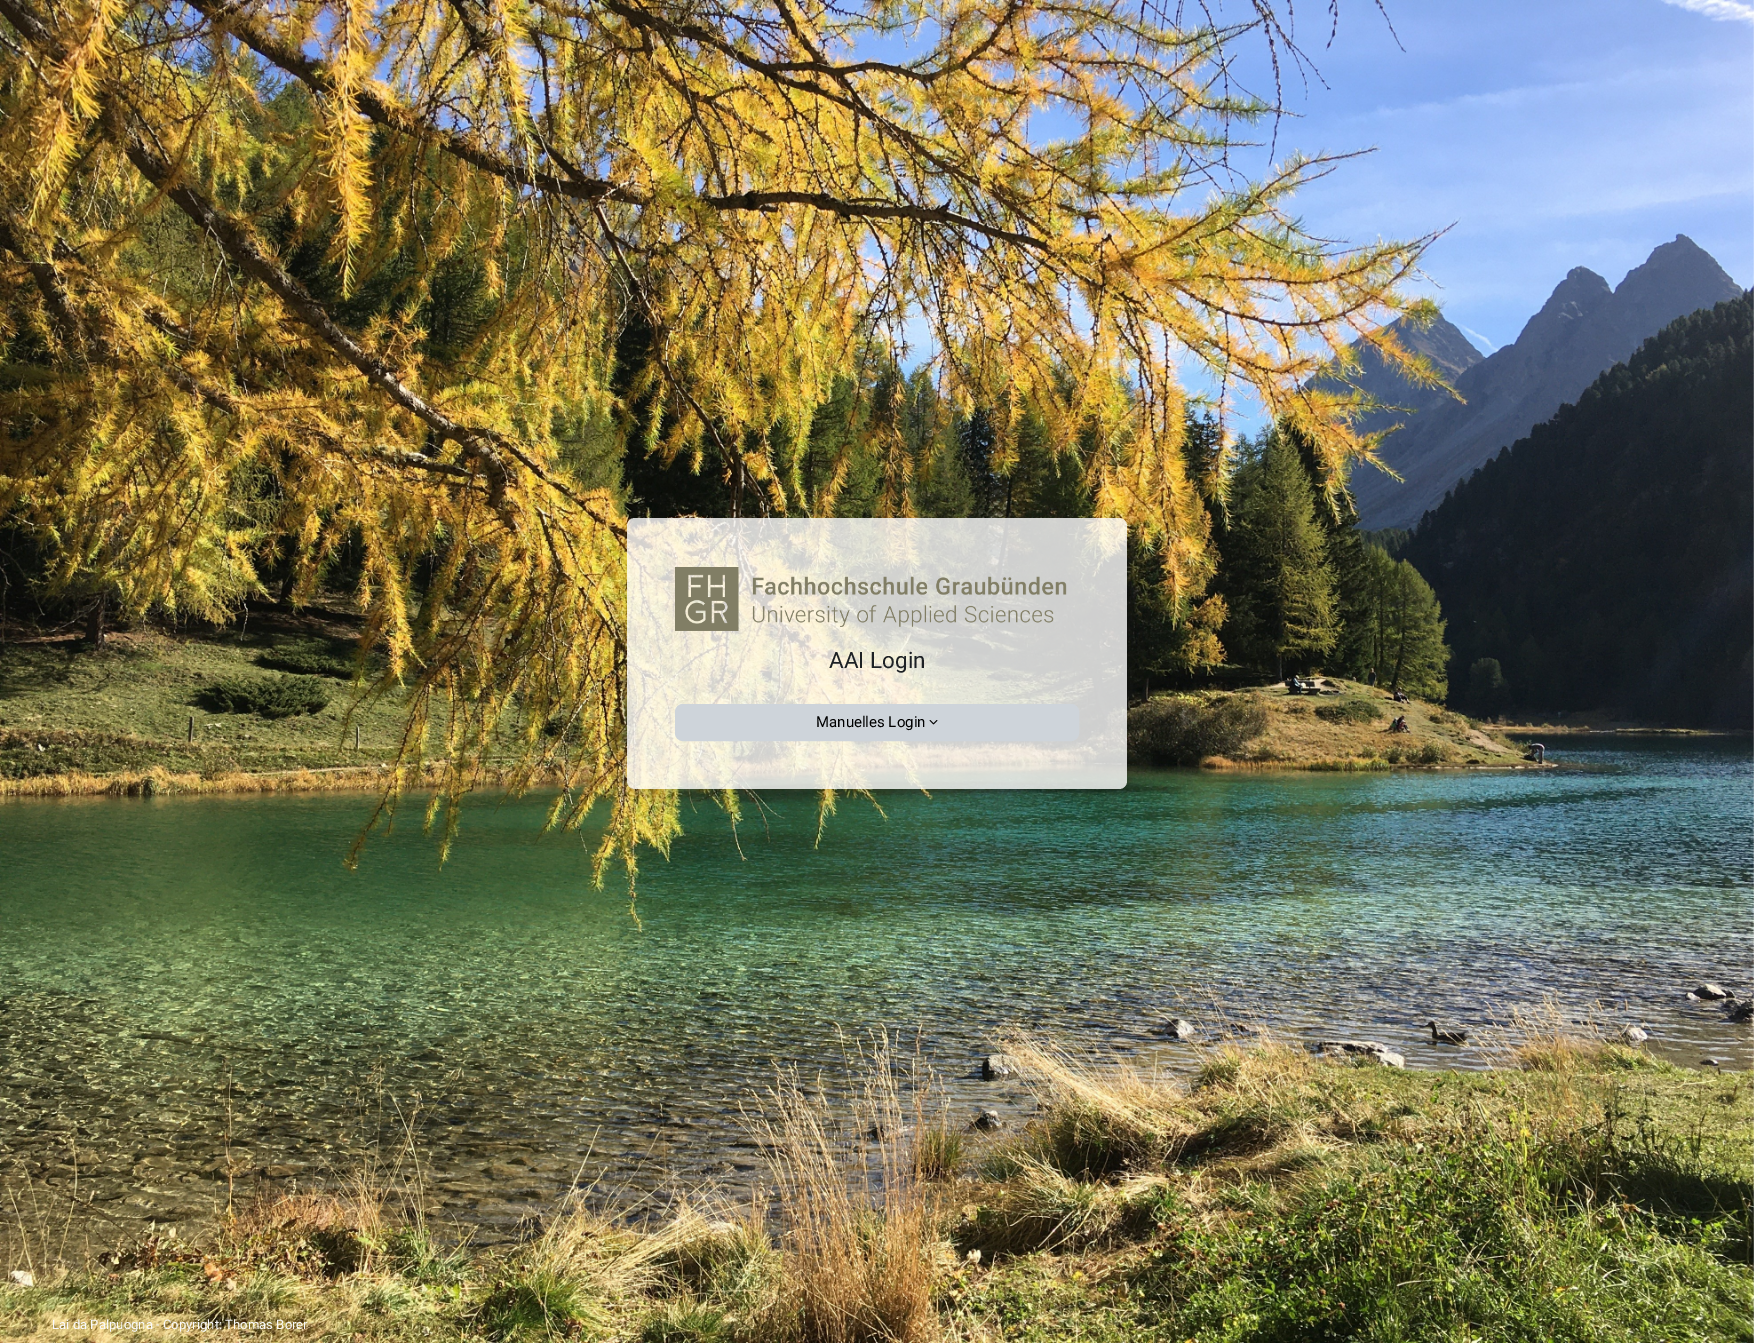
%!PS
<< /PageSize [1754 1343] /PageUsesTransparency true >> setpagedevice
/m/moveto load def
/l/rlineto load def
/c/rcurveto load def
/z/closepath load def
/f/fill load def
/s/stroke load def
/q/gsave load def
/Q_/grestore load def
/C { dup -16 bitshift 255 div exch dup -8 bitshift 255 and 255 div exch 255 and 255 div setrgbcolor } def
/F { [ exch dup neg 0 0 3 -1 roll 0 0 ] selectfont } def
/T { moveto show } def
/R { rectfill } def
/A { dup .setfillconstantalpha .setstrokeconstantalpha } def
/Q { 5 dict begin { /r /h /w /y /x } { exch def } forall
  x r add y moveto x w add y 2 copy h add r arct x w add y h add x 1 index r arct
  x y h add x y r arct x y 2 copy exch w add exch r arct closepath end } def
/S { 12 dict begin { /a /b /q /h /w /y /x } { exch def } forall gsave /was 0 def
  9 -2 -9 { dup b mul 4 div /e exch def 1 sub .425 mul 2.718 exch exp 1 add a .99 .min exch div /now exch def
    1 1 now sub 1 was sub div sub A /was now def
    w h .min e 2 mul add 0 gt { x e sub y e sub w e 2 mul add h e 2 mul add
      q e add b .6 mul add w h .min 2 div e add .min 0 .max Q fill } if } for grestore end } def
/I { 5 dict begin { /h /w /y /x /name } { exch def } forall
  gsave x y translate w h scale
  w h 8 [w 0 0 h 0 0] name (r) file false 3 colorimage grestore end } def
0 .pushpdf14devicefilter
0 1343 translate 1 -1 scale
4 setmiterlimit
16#FFFFFF C
0 0 1754 1343 R
(1.rgb) 0 0 1754 1343 I
q
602 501 m 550 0 l 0 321 l -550 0 l z 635 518 m 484 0 l 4.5 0 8 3.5 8 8 c 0 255 l 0 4.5 -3.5 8 -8 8 c -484 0 l -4.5 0 -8 -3.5 -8 -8 c 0 -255 l 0 -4.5 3.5 -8 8 -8 c z eoclip newpath
16#000000 C
627 526 500 271 8 8 .15 S
Q_
0.8 A
627 518 500 271 8 Q f
1 A
(2.rgb) 675 567 392 64 I
/Roboto-Regular 22.5 F
16#1D2125 C
(AAI Login) 829 668 T
16#CED4DA C
675.5 704.5 403 36 7.5 Q q f Q_
s
/Roboto-Regular 15 F
16#000000 C
(Manuelles Login) 816 727 T
(3.rgb) 929 720 9 5 I
/Roboto-Regular 13.1 F
16#F8F9FA C
(Lai da Palpuogna - Copyright: Thomas Borer) 52 1329 T
.poppdf14devicefilter showpage
